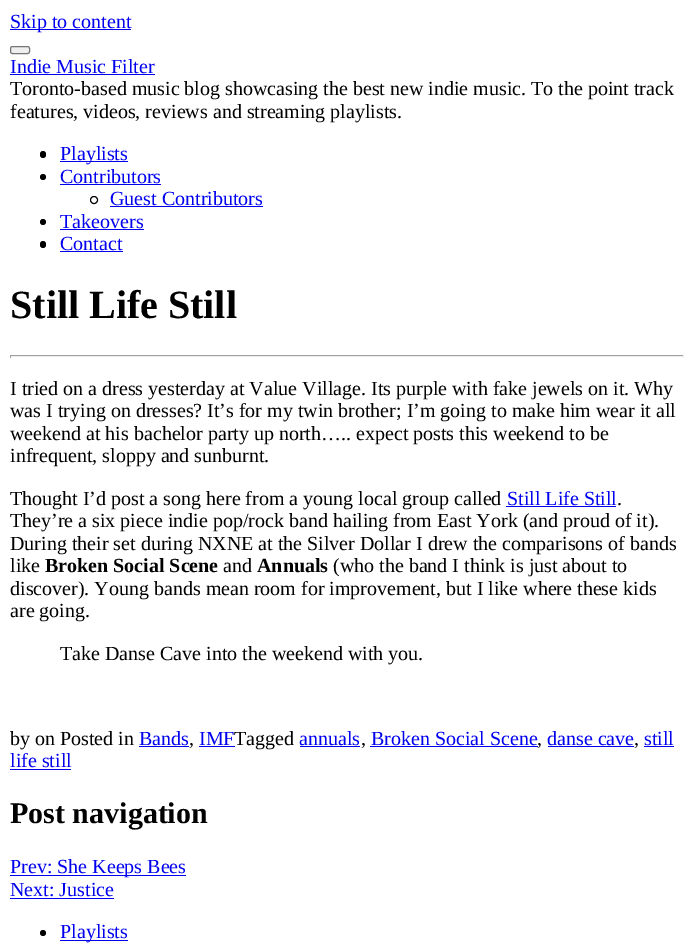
%!PS
<< /PageSize [693 950] >> setpagedevice
/f/fill load def
/s/stroke load def
/q/gsave load def
/Q_/grestore load def
/C { dup -16 bitshift 255 div exch dup -8 bitshift 255 and 255 div exch 255 and 255 div setrgbcolor } def
/F { [ exch dup neg 0 0 3 -1 roll 0 0 ] selectfont } def
/T { moveto show } def
/R { rectfill } def
/O { newpath 0 360 arc closepath } def
/Q { 5 dict begin { /r /h /w /y /x } { exch def } forall
  x r add y moveto x w add y 2 copy h add r arct x w add y h add x 1 index r arct
  x y h add x y r arct x y 2 copy exch w add exch r arct closepath end } def
0 950 translate 1 -1 scale
4 setmiterlimit
16#FFFFFF C
0 0 693 950 R
16#0000EE C
10 29 121 1 R
/LiberationSerif-Regular 20 F
(Skip to content) 10 28 T
16#EFEFEF C
10.5 46.5 19 7 2 Q q f Q_
16#767676 C
s
16#0000EE C
(Indie Music Filter) 10 73 T
10 74 145 1 R
16#000000 C
(Toronto-based music blog showcasing the best new indie music. To the point track) 10 95 T
(features, videos, reviews and streaming playlists.) 10 118 T
40 151 6 7 3 Q f
16#0000EE C
60 161 68 1 R
(Playlists) 60 160 T
16#000000 C
43 177 3 O f
16#0000EE C
(Contributors) 60 183 T
60 184 101 1 R
16#000000 C
94 200 3.5 O s
16#0000EE C
(Guest Contributors) 110 205 T
110 206 153 1 R
16#000000 C
43 222 3 O f
16#0000EE C
(Takeovers) 60 228 T
60 229 84 1 R
16#000000 C
40 241 6 7 3 Q f
16#0000EE C
(Contact) 60 250 T
60 251 63 1 R
/LiberationSerif-Bold 40 F
16#000000 C
(Still Life Still) 10 318 T
16#9F9F9F C
10 355 674 1 R
16#EEEEEE C
683 355 1 3 R
10 356 674 1 R
16#9F9F9F C
10 355 1 3 R
/LiberationSerif-Regular 20 F
16#000000 C
(I tried on a dress yesterday at Value Village. Its purple with fake jewels on it. Why) 10 395 T
(was I trying on dresses? It’s for my twin brother; I’m going to make him wear it all) 10 417 T
(weekend at his bachelor party up north….. expect posts this weekend to be) 10 440 T
(infrequent, sloppy and sunburnt.) 10 462 T
(Thought I’d post a song here from a young local group called) 10 505 T
16#0000EE C
(Still Life Still) 507 505 T
506 506 110 1 R
16#000000 C
(.) 617 505 T
(They’re a six piece indie pop/rock band hailing from East York \(and proud of it\).) 10 527 T
(During their set during NXNE at the Silver Dollar I drew the comparisons of bands) 10 550 T
(like) 10 572 T
/LiberationSerif-Bold 20 F
(Broken Social Scene) 45 572 T
/LiberationSerif-Regular 20 F
(and) 223 572 T
/LiberationSerif-Bold 20 F
(Annuals) 257 572 T
/LiberationSerif-Regular 20 F
(\(who the band I think is just about to) 333 572 T
(discover\). Young bands mean room for improvement, but I like where these kids) 10 595 T
(are going.) 10 617 T
(Take Danse Cave into the weekend with you.) 60 660 T
(by on Posted in) 10 745 T
16#0000EE C
(Bands) 139 745 T
16#000000 C
(,) 189 745 T
16#0000EE C
139 746 50 1 R
199 746 36 1 R
(IMF) 199 745 T
16#000000 C
(Tagged) 234 745 T
16#0000EE C
(annuals) 299 745 T
16#000000 C
(,) 361 745 T
16#0000EE C
300 746 60 1 R
(Broken Social Scene) 371 745 T
370 746 168 1 R
16#000000 C
(,) 537 745 T
16#0000EE C
(danse cave) 547 745 T
16#000000 C
(,) 634 745 T
16#0000EE C
548 746 86 1 R
644 746 30 1 R
(still) 644 745 T
(life still) 10 767 T
10 769 61 1 R
/LiberationSerif-Bold 30 F
16#000000 C
(Post navigation) 10 823 T
16#0000EE C
10 875 176 1 R
/LiberationSerif-Regular 20 F
(Prev: She Keeps Bees) 10 873 T
(Next: Justice) 10 896 T
10 898 104 1 R
16#000000 C
43 933 3 O f
16#0000EE C
60 940 68 1 R
(Playlists) 60 938 T
showpage
